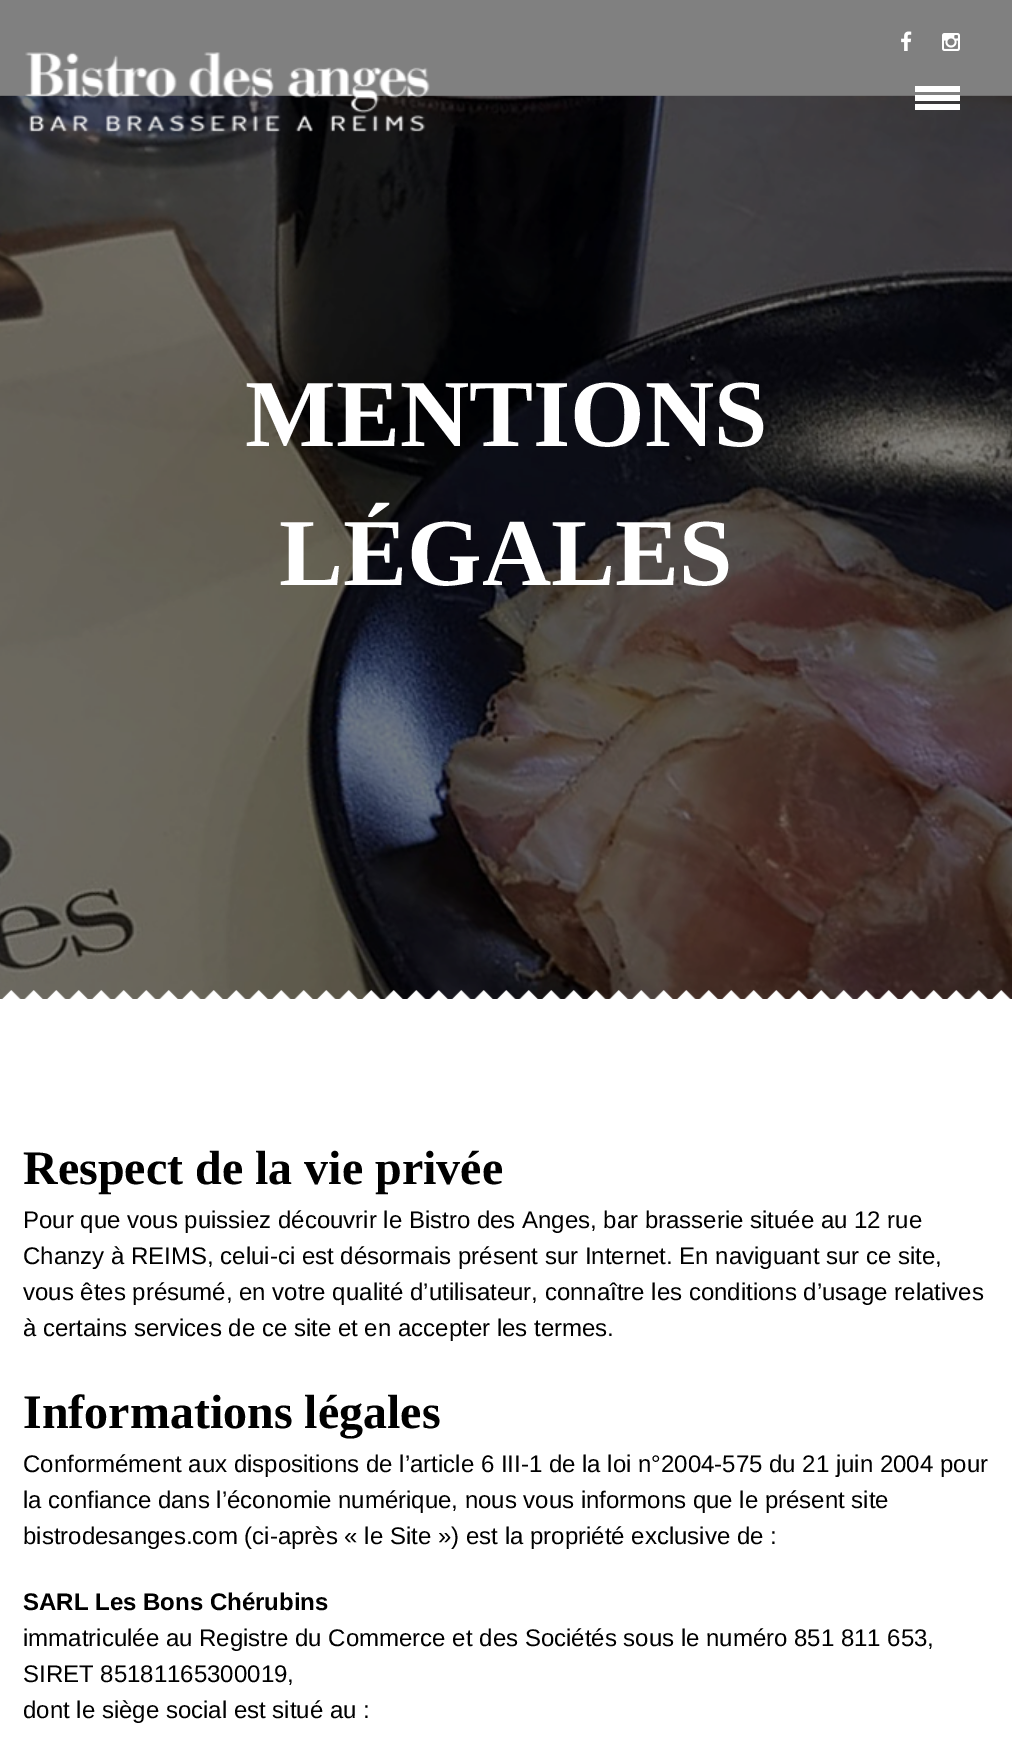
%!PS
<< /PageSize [1012 1745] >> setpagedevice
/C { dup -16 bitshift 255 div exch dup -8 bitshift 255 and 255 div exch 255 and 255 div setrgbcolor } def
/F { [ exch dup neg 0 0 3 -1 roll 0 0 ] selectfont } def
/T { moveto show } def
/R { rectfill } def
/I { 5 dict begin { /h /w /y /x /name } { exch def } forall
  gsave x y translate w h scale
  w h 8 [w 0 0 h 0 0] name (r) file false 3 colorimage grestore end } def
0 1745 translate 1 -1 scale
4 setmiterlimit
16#FFFFFF C
0 0 1012 1745 R
16#808080 C
0 0 1012 96 R
(1.rgb) 901 31 11 20 I
(2.rgb) 942 33 18 18 I
(4.rgb) 0 95 1012 904 I
(3.rgb) 25 52 405 80 I
16#FFFFFF C
915 86 45 6 R
915 95 45 6 R
915 104 45 6 R
/LiberationSerif-Bold 96 F
(MENTIONS) 245 446 T
(LÉGALES) 279 585 T
(5.rgb) 1 990 1010 9 I
/LiberationSerif-Bold 48 F
16#000000 C
(Respect de la vie privée) 23 1184 T
/LiberationSans-Regular 24 F
(Pour que vous puissiez découvrir le Bistro des Anges, bar brasserie située au 12 rue) 23 1228 T
(Chanzy à REIMS, celui-ci est désormais présent sur Internet. En naviguant sur ce site,) 23 1264 T
(vous êtes présumé, en votre qualité d’utilisateur, connaître les conditions d’usage relatives) 23 1300 T
(à certains services de ce site et en accepter les termes.) 23 1336 T
/LiberationSerif-Bold 48 F
(Informations légales) 23 1428 T
/LiberationSans-Regular 24 F
(Conformément aux dispositions de l’article 6 III-1 de la loi n°2004-575 du 21 juin 2004 pour) 23 1472 T
(la confiance dans l’économie numérique, nous vous informons que le présent site) 23 1508 T
(bistrodesanges.com \(ci-après « le Site »\) est la propriété exclusive de :) 23 1544 T
/LiberationSans-Bold 24 F
(SARL Les Bons Chérubins) 23 1610 T
/LiberationSans-Regular 24 F
(immatriculée au Registre du Commerce et des Sociétés sous le numéro 851 811 653,) 23 1646 T
(SIRET 85181165300019,) 23 1682 T
(dont le siège social est situé au :) 23 1718 T
showpage
